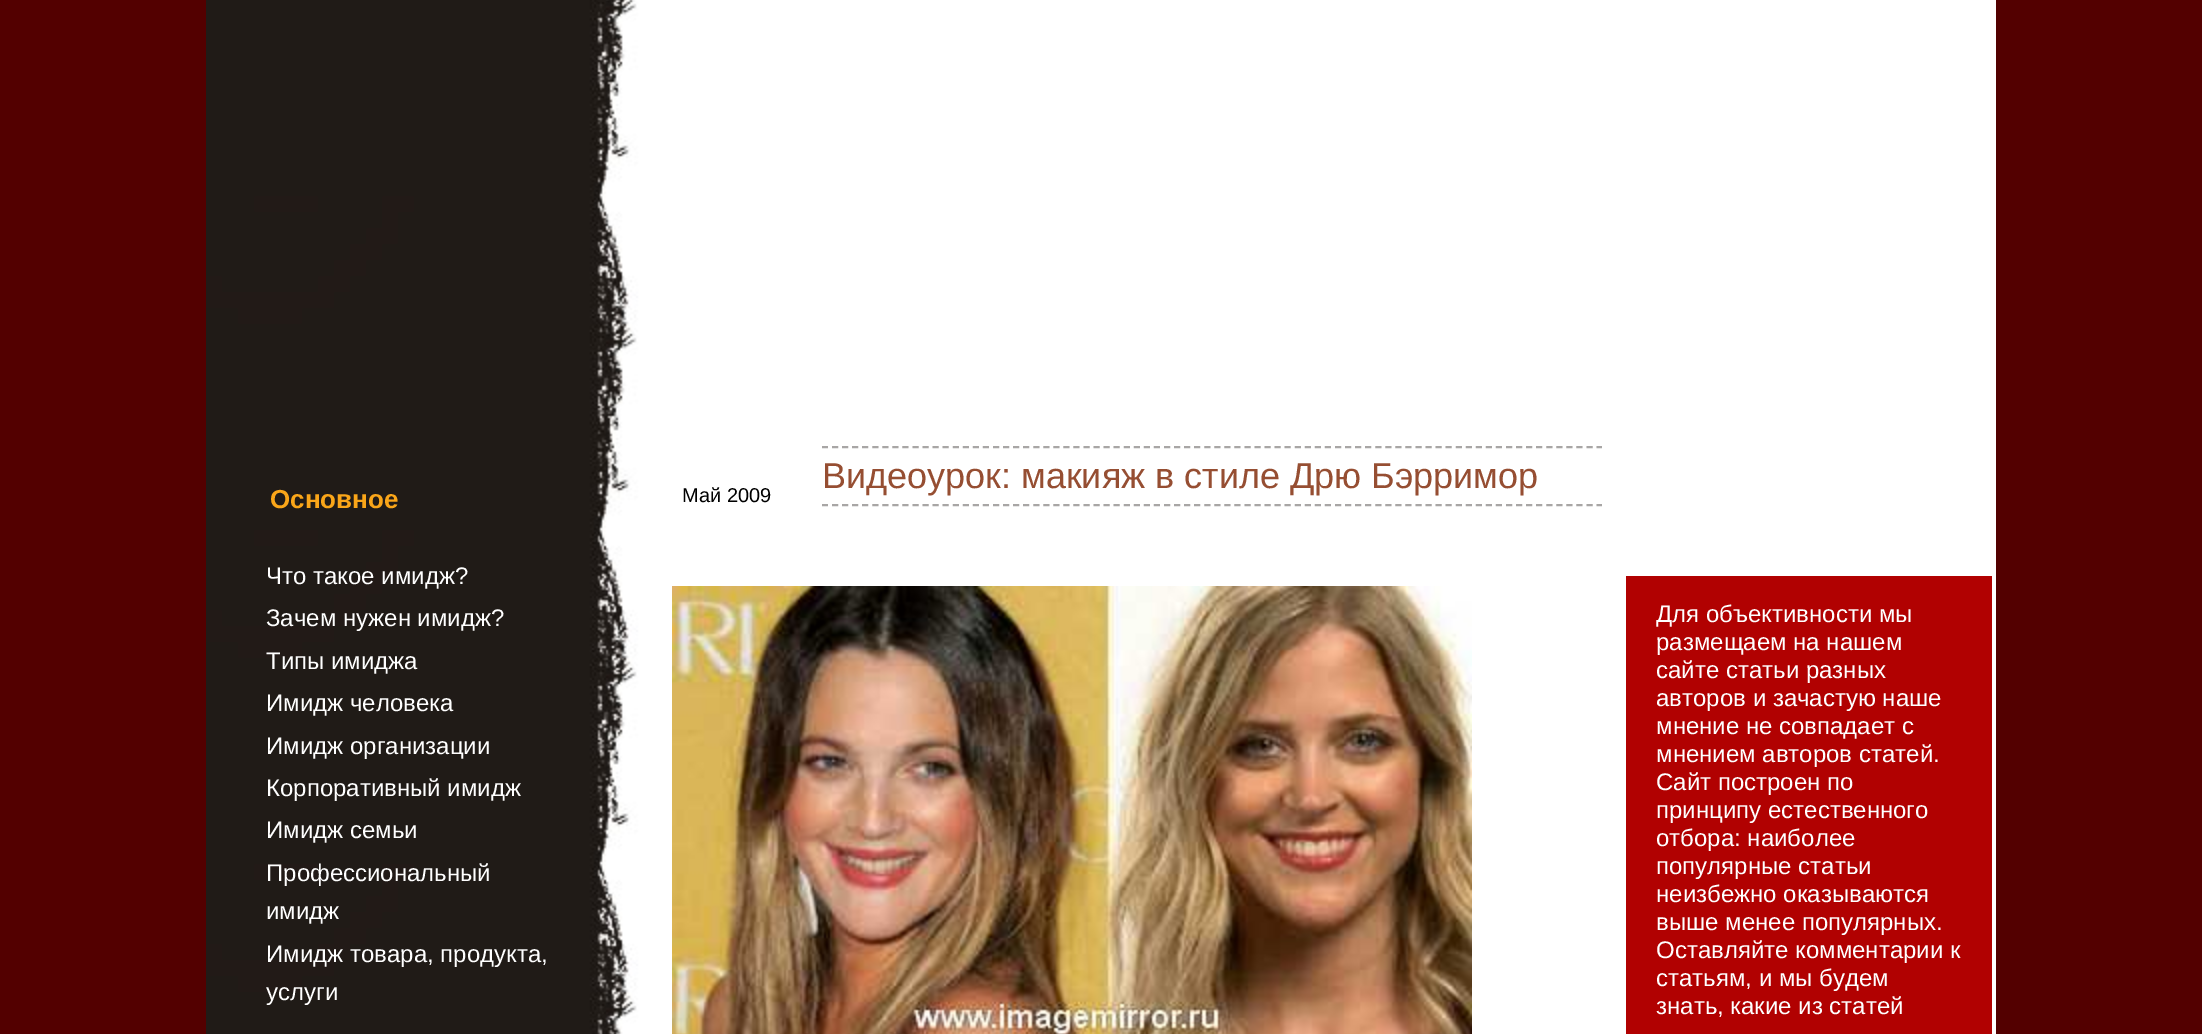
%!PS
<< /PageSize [2202 1034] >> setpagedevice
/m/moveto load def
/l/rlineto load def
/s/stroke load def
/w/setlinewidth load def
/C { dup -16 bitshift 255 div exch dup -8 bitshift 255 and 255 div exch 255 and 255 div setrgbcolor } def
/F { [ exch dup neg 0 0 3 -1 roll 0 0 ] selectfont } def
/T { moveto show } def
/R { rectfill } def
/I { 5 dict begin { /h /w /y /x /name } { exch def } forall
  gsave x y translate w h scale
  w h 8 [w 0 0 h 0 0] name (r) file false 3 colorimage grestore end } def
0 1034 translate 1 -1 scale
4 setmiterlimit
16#530000 C
0 0 2202 1034 R
(1.rgb) 206 0 1790 1034 I
/LiberationSans-Regular 20 F
16#000000 C
(Май 2009) 682 502 T
16#A8A6A5 C
2 w
[6 4.06] 0 setdash
822 447 m 780 0 l s
/LiberationSans-Regular 36 F
16#964E32 C
(Видеоурок: макияж в стиле Дрю Бэрримор) 822 488 T
16#A8A6A5 C
822 505 m 780 0 l s
(2.rgb) 672 586 800 448 I
/LiberationSans-Bold 26 F
16#FAA619 C
(Основное) 270 508 T
/LiberationSans-Regular 24 F
16#FFFFFF C
(Что такое имидж?) 266 584 T
(Зачем нужен имидж?) 266 626 T
(Типы имиджа) 266 669 T
(Имидж человека) 266 711 T
(Имидж организации) 266 754 T
(Корпоративный имидж) 266 796 T
(Имидж семьи) 266 838 T
(Профессиональный) 266 881 T
(имидж) 266 919 T
(Имидж товара, продукта,) 266 962 T
(услуги) 266 1000 T
16#B10101 C
1626 576 366 458 R
16#FFFFFF C
(Для объективности мы) 1656 622 T
(размещаем на нашем) 1656 650 T
(сайте статьи разных) 1656 678 T
(авторов и зачастую наше) 1656 706 T
(мнение не совпадает с) 1656 734 T
(мнением авторов статей.) 1656 762 T
(Сайт построен по) 1656 790 T
(принципу естественного) 1656 818 T
(отбора: наиболее) 1656 846 T
(популярные статьи) 1656 874 T
(неизбежно оказываются) 1656 902 T
(выше менее популярных.) 1656 930 T
(Оставляйте комментарии к) 1656 958 T
(статьям, и мы будем) 1656 986 T
(знать, какие из статей) 1656 1014 T
showpage
